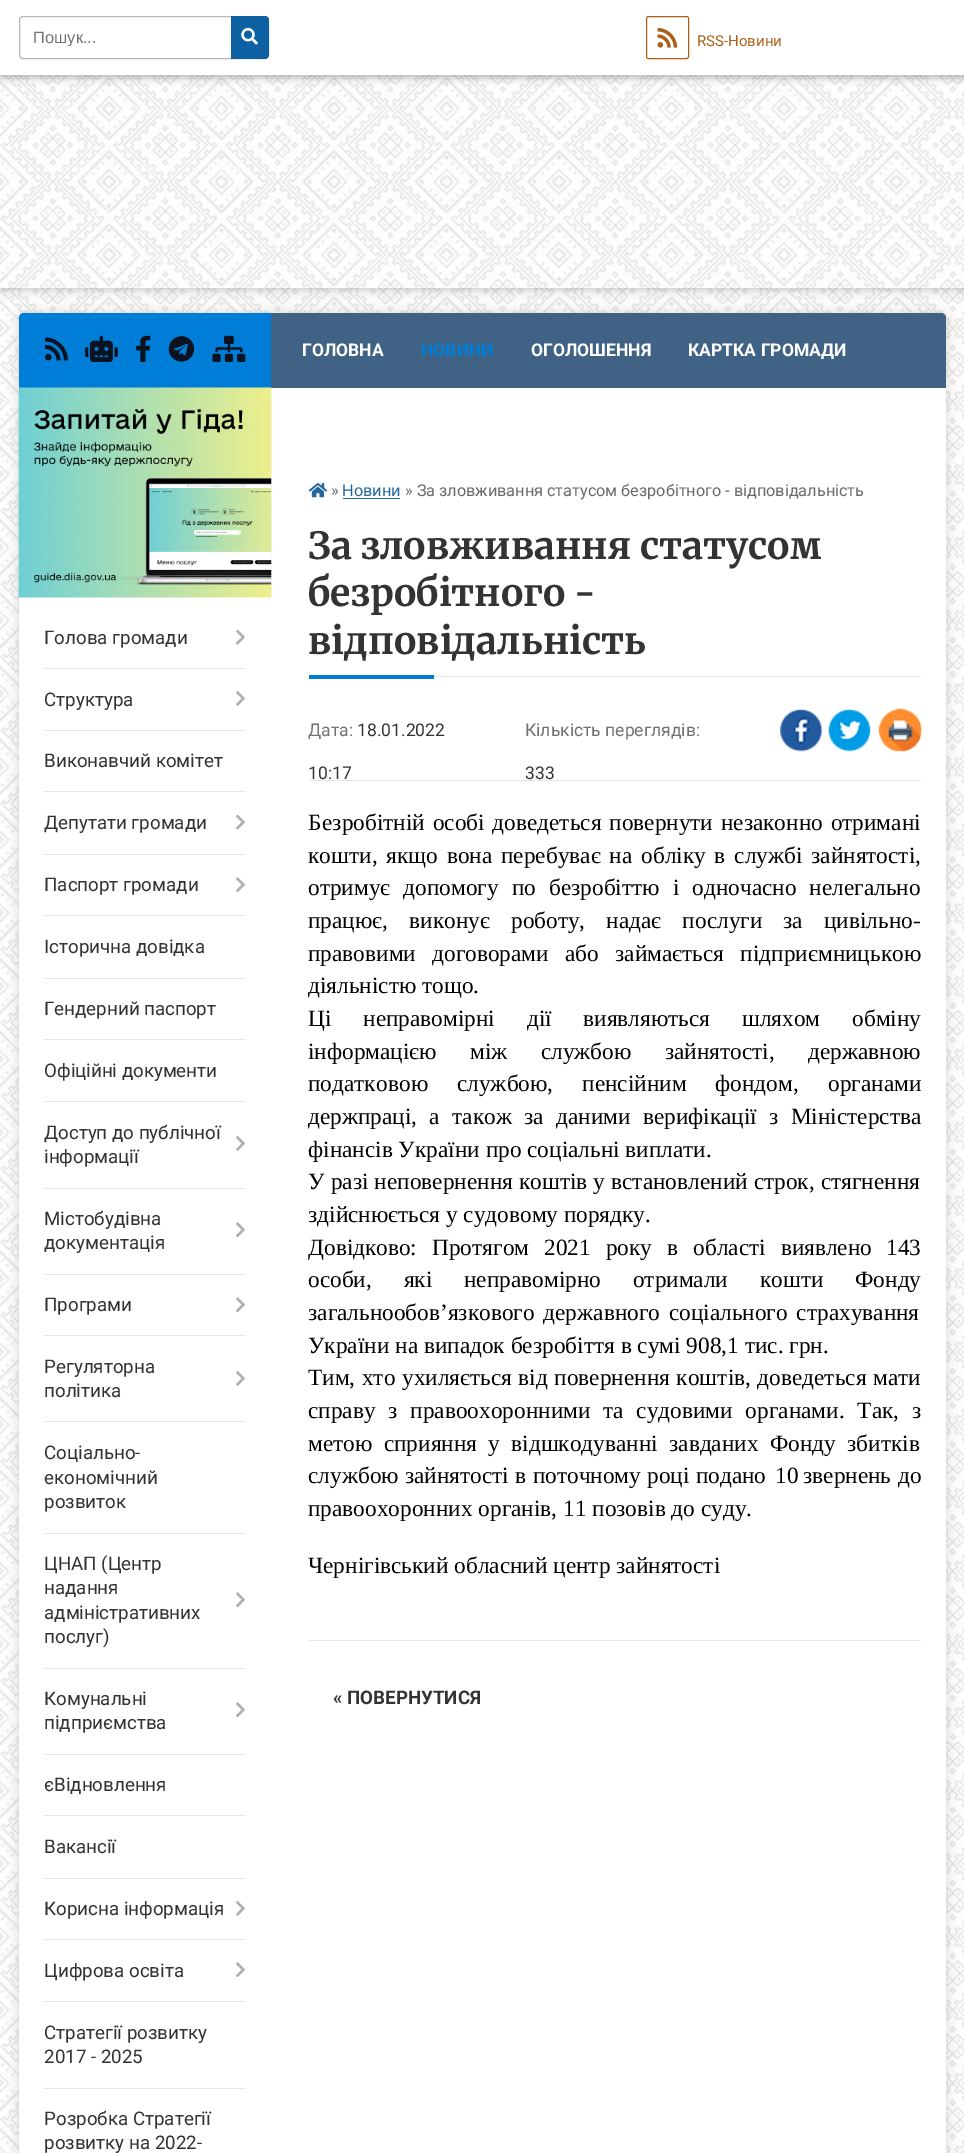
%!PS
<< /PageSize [964 2153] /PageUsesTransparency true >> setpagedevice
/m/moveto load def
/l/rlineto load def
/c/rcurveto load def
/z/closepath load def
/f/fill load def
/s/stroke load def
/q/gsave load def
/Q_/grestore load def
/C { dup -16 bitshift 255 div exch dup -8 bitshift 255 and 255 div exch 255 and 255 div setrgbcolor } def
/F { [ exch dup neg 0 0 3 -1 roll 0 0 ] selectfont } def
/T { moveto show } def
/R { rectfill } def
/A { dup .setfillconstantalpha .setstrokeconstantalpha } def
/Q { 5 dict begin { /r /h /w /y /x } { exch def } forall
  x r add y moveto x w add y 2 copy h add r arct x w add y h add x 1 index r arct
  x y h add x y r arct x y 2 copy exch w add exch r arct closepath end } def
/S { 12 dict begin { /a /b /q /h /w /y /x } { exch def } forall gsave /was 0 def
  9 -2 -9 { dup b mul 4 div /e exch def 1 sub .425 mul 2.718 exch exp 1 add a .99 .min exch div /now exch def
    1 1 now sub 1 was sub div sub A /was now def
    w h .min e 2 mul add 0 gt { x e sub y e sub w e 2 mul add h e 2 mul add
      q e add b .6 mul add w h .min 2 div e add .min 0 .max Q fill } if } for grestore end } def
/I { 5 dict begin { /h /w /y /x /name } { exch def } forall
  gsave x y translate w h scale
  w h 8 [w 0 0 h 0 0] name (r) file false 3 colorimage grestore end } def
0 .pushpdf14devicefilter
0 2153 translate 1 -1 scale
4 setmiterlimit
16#FFFFFF C
0 0 964 2153 R
(1.rgb) 0 75 964 2078 I
16#000000 C
0 1 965 75 0 4.5 .4 S
q
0 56 m 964 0 l 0 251 l -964 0 l z 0 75 m 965 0 l 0 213 l -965 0 l z eoclip newpath
0 75 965 213 0 6 .3 S
Q_
16#FFFFFF C
0 0 964 75 R
16#B7B7B7 C
19.5 16.5 249 42 3.5 Q s
q
33 28 185 18 rectclip
/LiberationSans-Regular 16.5 F
16#727272 C
(Пошук...) 33 43 T
Q_
16#0D61A2 C
231 16 m 34 0 l 2 0 4 2 4 4 c 0 35 l 0 2 -2 4 -4 4 c -34 0 l z f
(2.rgb) 241 27 17 18 I
16#AB5F17 C
646.5 16.5 42 42 2 Q s
(3.rgb) 657 28 21 20 I
/Roboto-Regular 15 F
(RSS-Новини) 697 46 T
16#000000 C
19 313 927 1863 5 6 .15 S
16#FFFFFF C
19 313 927 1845 5 Q f
16#007DD6 C
24 313 m 247 0 l 0 75 l -252 0 l 0 -70 l 0 -3 2 -5 5 -5 c z f
(4.rgb) 45 337 23 24 I
(5.rgb) 85 335 33 27 I
(6.rgb) 136 335 15 27 I
(7.rgb) 168 336 27 26 I
(8.rgb) 212 335 34 27 I
16#406285 C
271 313 m 670 0 l 3 0 5 2 5 5 c 0 70 l -675 0 l z f
(9.rgb) 18 387 254 211 I
/Roboto-Regular 18.75 F
16#333333 C
(Голова громади) 44 644 T
16#E6E6E6 C
44 668 202 1 R
(10.rgb) 236 629 9 16 I
16#333333 C
(Структура) 44 706 T
16#E6E6E6 C
44 730 202 1 R
(11.rgb) 236 691 9 15 I
16#333333 C
(Виконавчий комітет) 44 767 T
16#E6E6E6 C
44 791 202 1 R
16#333333 C
(Депутати громади) 44 829 T
16#E6E6E6 C
44 854 202 1 R
(10.rgb) 236 814 9 16 I
16#333333 C
(Паспорт громади) 44 891 T
16#E6E6E6 C
44 915 202 1 R
(12.rgb) 236 877 9 15 I
16#333333 C
(Історична довідка) 44 953 T
16#E6E6E6 C
44 978 202 1 R
16#333333 C
(Гендерний паспорт) 44 1015 T
16#E6E6E6 C
44 1039 202 1 R
16#333333 C
(Офіційні документи) 44 1077 T
16#E6E6E6 C
44 1101 202 1 R
16#333333 C
(Доступ до публічної) 44 1139 T
(інформації) 44 1163 T
16#E6E6E6 C
44 1188 202 1 R
(11.rgb) 236 1136 9 15 I
16#333333 C
(Містобудівна) 44 1225 T
(документація) 44 1249 T
16#E6E6E6 C
44 1274 202 1 R
(12.rgb) 236 1222 9 15 I
16#333333 C
(Програми) 44 1311 T
16#E6E6E6 C
44 1335 202 1 R
(12.rgb) 236 1297 9 15 I
16#333333 C
(Регуляторна) 44 1373 T
(політика) 44 1397 T
16#E6E6E6 C
44 1421 202 1 R
(11.rgb) 236 1371 9 15 I
16#333333 C
(Соціально-) 44 1459 T
(економічний) 44 1484 T
(розвиток) 44 1508 T
16#E6E6E6 C
44 1533 202 1 R
16#333333 C
(ЦНАП \(Центр) 44 1570 T
(надання) 44 1594 T
(адміністративних) 44 1619 T
(послуг\)) 44 1643 T
16#E6E6E6 C
44 1668 202 1 R
(12.rgb) 236 1592 9 15 I
16#333333 C
(Комунальні) 44 1705 T
(підприємства) 44 1729 T
16#E6E6E6 C
44 1754 202 1 R
(12.rgb) 236 1702 9 15 I
16#333333 C
(єВідновлення) 44 1791 T
16#E6E6E6 C
44 1815 202 1 R
16#333333 C
(Вакансії) 44 1853 T
16#E6E6E6 C
44 1878 202 1 R
16#333333 C
(Корисна інформація) 44 1915 T
16#E6E6E6 C
44 1939 202 1 R
(11.rgb) 236 1901 9 15 I
16#333333 C
(Цифрова освіта) 44 1977 T
16#E6E6E6 C
44 2001 202 1 R
(12.rgb) 236 1962 9 15 I
16#333333 C
(Стратегії розвитку) 44 2039 T
(2017 - 2025) 44 2063 T
16#E6E6E6 C
44 2088 202 1 R
16#333333 C
(Розробка Стратегії) 44 2125 T
(розвитку на 2022-) 44 2149 T
/Roboto-Bold 17.5 F
16#FFFFFF C
(ГОЛОВНА) 302 356 T
16#007DD6 C
(НОВИНИ) 421 356 T
16#FFFFFF C
(ОГОЛОШЕННЯ) 531 356 T
(КАРТКА ГРОМАДИ) 688 356 T
(13.rgb) 308 483 19 15 I
/Roboto-Regular 16.25 F
16#696969 C
(») 331 496 T
16#25669C C
(Новини) 342 496 T
343 498 57 1 R
16#696969 C
(» За зловживання статусом безробітного - відповідальність) 405 496 T
16#E5E5E5 C
434 676 487 1 R
/Merriweather-Light 37.5 F
16#333333 C
(За зловживання статусом) 308 559 T
(безробітного -) 308 606 T
(відповідальність) 308 654 T
16#007DD6 C
309 675 125 4 R
/Roboto-Regular 17.5 F
16#727272 C
(Дата:) 308 736 T
16#333333 C
(18.01.2022) 357 736 T
(10:17) 308 779 T
16#727272 C
(Кількість переглядів:) 525 736 T
16#333333 C
(333) 525 779 T
(14.rgb) 780 708 43 44 I
(15.rgb) 828 708 43 44 I
(16.rgb) 878 708 44 44 I
16#E5E5E5 C
309 780 612 1 R
/LiberationSerif-Regular 23.3 F
16#000000 C
(Б) 308 830 T
322 830 m 2 0 32 (езробітній особі доведеться повернути незаконно отримані) widthshow
308 863 m 3 0 32 (кошти, якщо вона перебуває на обліку в службі зайнятості,) widthshow
308 895 m 7.25 0 32 (отримує допомогу по безробіттю і одночасно нелегально) widthshow
308 928 m 15.25 0 32 (працює, виконує роботу, надає послуги за цивільно-) widthshow
308 961 m 10.5 0 32 (правовими договорами або займається підприємницькою) widthshow
(діяльністю тощо.) 308 993 T
308 1026 m 26 0 32 (Ці неправомірні дії виявляються шляхом обміну) widthshow
308 1059 m 27.5 0 32 (інформацією між службою зайнятості, державною) widthshow
(податко) 308 1091 T
388 1091 m 23 0 32 (вою службою, пенсійним фондом,) widthshow
(органами) 828 1091 T
308 1124 m 6.5 0 32 (держпраці, а також за даними верифікації з Міністерства) widthshow
(фінансів України про соціальні виплати.) 308 1157 T
308 1189 m .25 0 32 (У разі неповернення коштів у встановлений строк, стягнення) widthshow
(здійснюється у судовому порядку.) 308 1222 T
308 1255 m 9.25 0 32 (Довідково: Протягом 2021 року в області виявлено) widthshow
(143) 886 1255 T
(особи) 308 1287 T
366 1287 m 26 0 32 (, які неправомірно отримали кошти Фонду) widthshow
308 1320 m 3 0 32 (загальнообов’язкового державного соціального страхування) widthshow
(України на випадок безробіття в сумі 908,1 тис. грн.) 308 1353 T
308 1385 m .75 0 32 (Тим, хто ухиляється від повернення коштів, доведеться мати) widthshow
308 1418 m 7 0 32 (справу з правоохоронними та судовими органами. Так, з) widthshow
308 1451 m 5.5 0 32 (метою сприяння у відшкодуванні завданих Фонду збитків) widthshow
308 1483 m .5 0 32 (службою зайнятості в поточному році подано) widthshow
(10) 775 1483 T
803 1483 m 1 0 32 (звернень до) widthshow
(правоохоронних органів, 11 позовів до суду.) 308 1516 T
(Чернігівський обласний центр зайнятості) 308 1573 T
16#E5E5E5 C
309 1640 612 1 R
/Roboto-Bold 18.75 F
16#333333 C
(« ПОВЕРНУТИСЯ) 333 1704 T
.poppdf14devicefilter showpage
